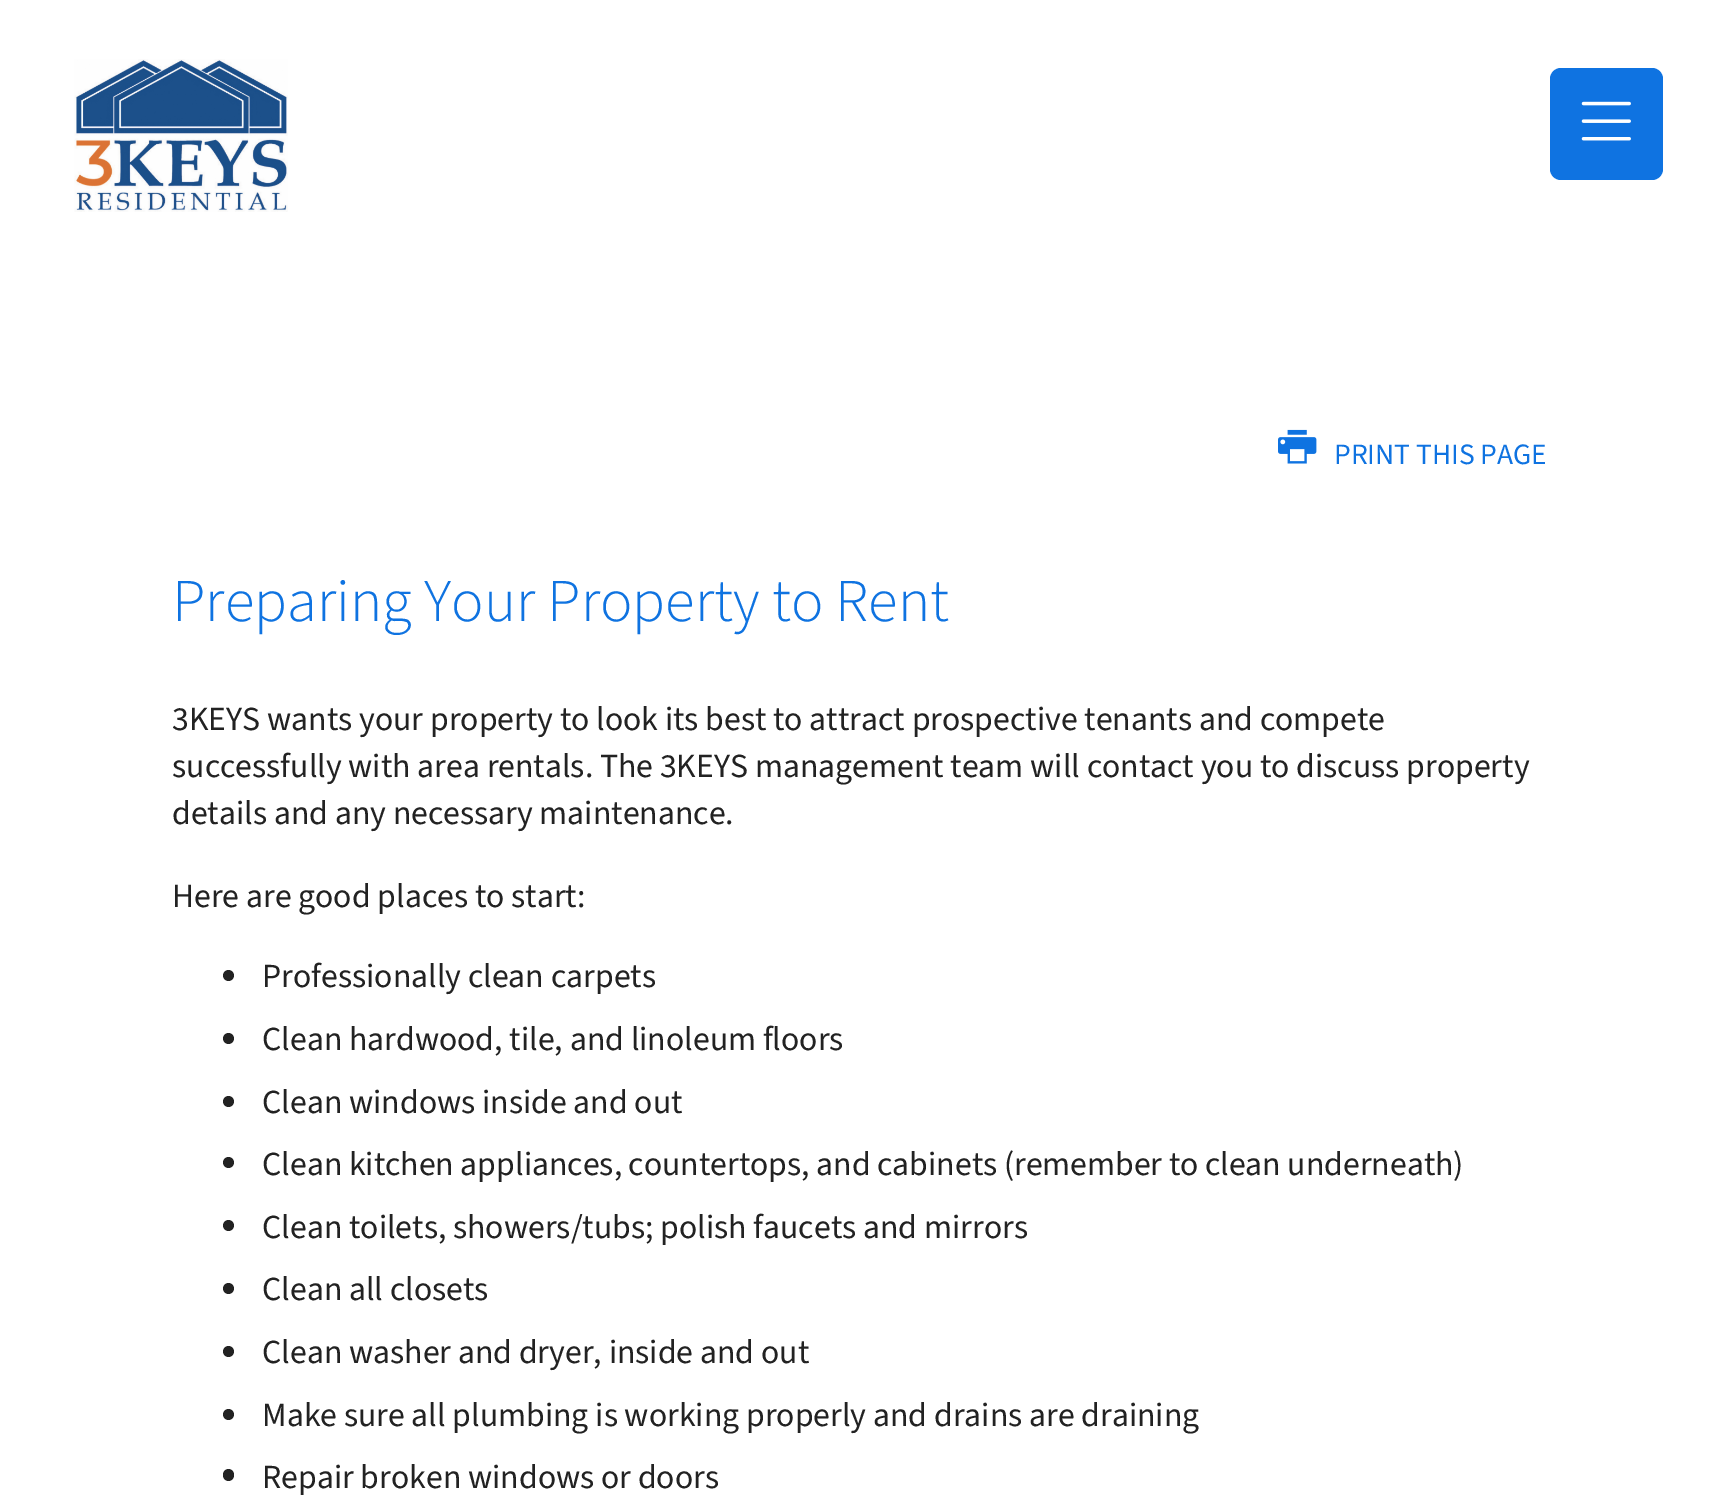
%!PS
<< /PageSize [1719 1500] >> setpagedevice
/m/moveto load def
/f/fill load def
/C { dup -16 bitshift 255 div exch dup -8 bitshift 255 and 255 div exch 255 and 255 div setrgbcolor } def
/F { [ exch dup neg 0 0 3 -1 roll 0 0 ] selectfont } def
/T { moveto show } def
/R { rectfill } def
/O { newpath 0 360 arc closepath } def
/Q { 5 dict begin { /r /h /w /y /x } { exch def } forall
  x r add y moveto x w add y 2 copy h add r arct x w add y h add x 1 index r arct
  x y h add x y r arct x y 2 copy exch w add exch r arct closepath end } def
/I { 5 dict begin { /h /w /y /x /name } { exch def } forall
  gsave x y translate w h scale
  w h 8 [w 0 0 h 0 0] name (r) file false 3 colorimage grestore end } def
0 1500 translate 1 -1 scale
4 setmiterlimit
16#FFFFFF C
0 0 1719 1500 R
(1.rgb) 74 59 214 153 I
16#0F73E1 C
1550 68 113 112 11 Q f
(2.rgb) 1581 101 50 40 I
(3.rgb) 1278 429 39 35 I
/SourceSans3-Regular 29.5 F
(PRINT THIS PAGE) 1334 464 T
/SourceSans3-Light 60.75 F
(Preparing Your Property to Rent) 172 621 T
/SourceSans3-Regular 33.75 F
16#222222 C
(3KEYS wants your property to look its best to attract prospective tenants and compete) 172 730 T
(successfully with area rentals. The 3KEYS management team will contact you to discuss property) 172 777 T
(details and any necessary maintenance.) 172 824 T
(Here are good places to start:) 172 907 T
228.5 975.5 5.5 O f
(Professionally clean carpets) 262 987 T
228.5 1038.5 5.5 O f
(Clean hardwood, tile, and linoleum floors) 262 1050 T
228.5 1101.5 5.5 O f
(Clean windows inside and out) 262 1113 T
228.5 1162.5 5.5 O f
262 1175 m -.25 0 32 (Clean kitchen appliances, countertops, and cabinets \(remember to clean underneath\)) widthshow
228.5 1225.5 5.5 O f
(Clean toilets, showers/tubs; polish faucets and mirrors) 262 1238 T
228.5 1288.5 5.5 O f
(Clean all closets) 262 1300 T
228.5 1351.5 5.5 O f
(Clean washer and dryer, inside and out) 262 1363 T
228.5 1414.5 5.5 O f
(Make sure all plumbing is working properly and drains are draining) 262 1426 T
223 1469 11 12 5.5 Q f
(Repair broken windows or doors) 262 1488 T
showpage
